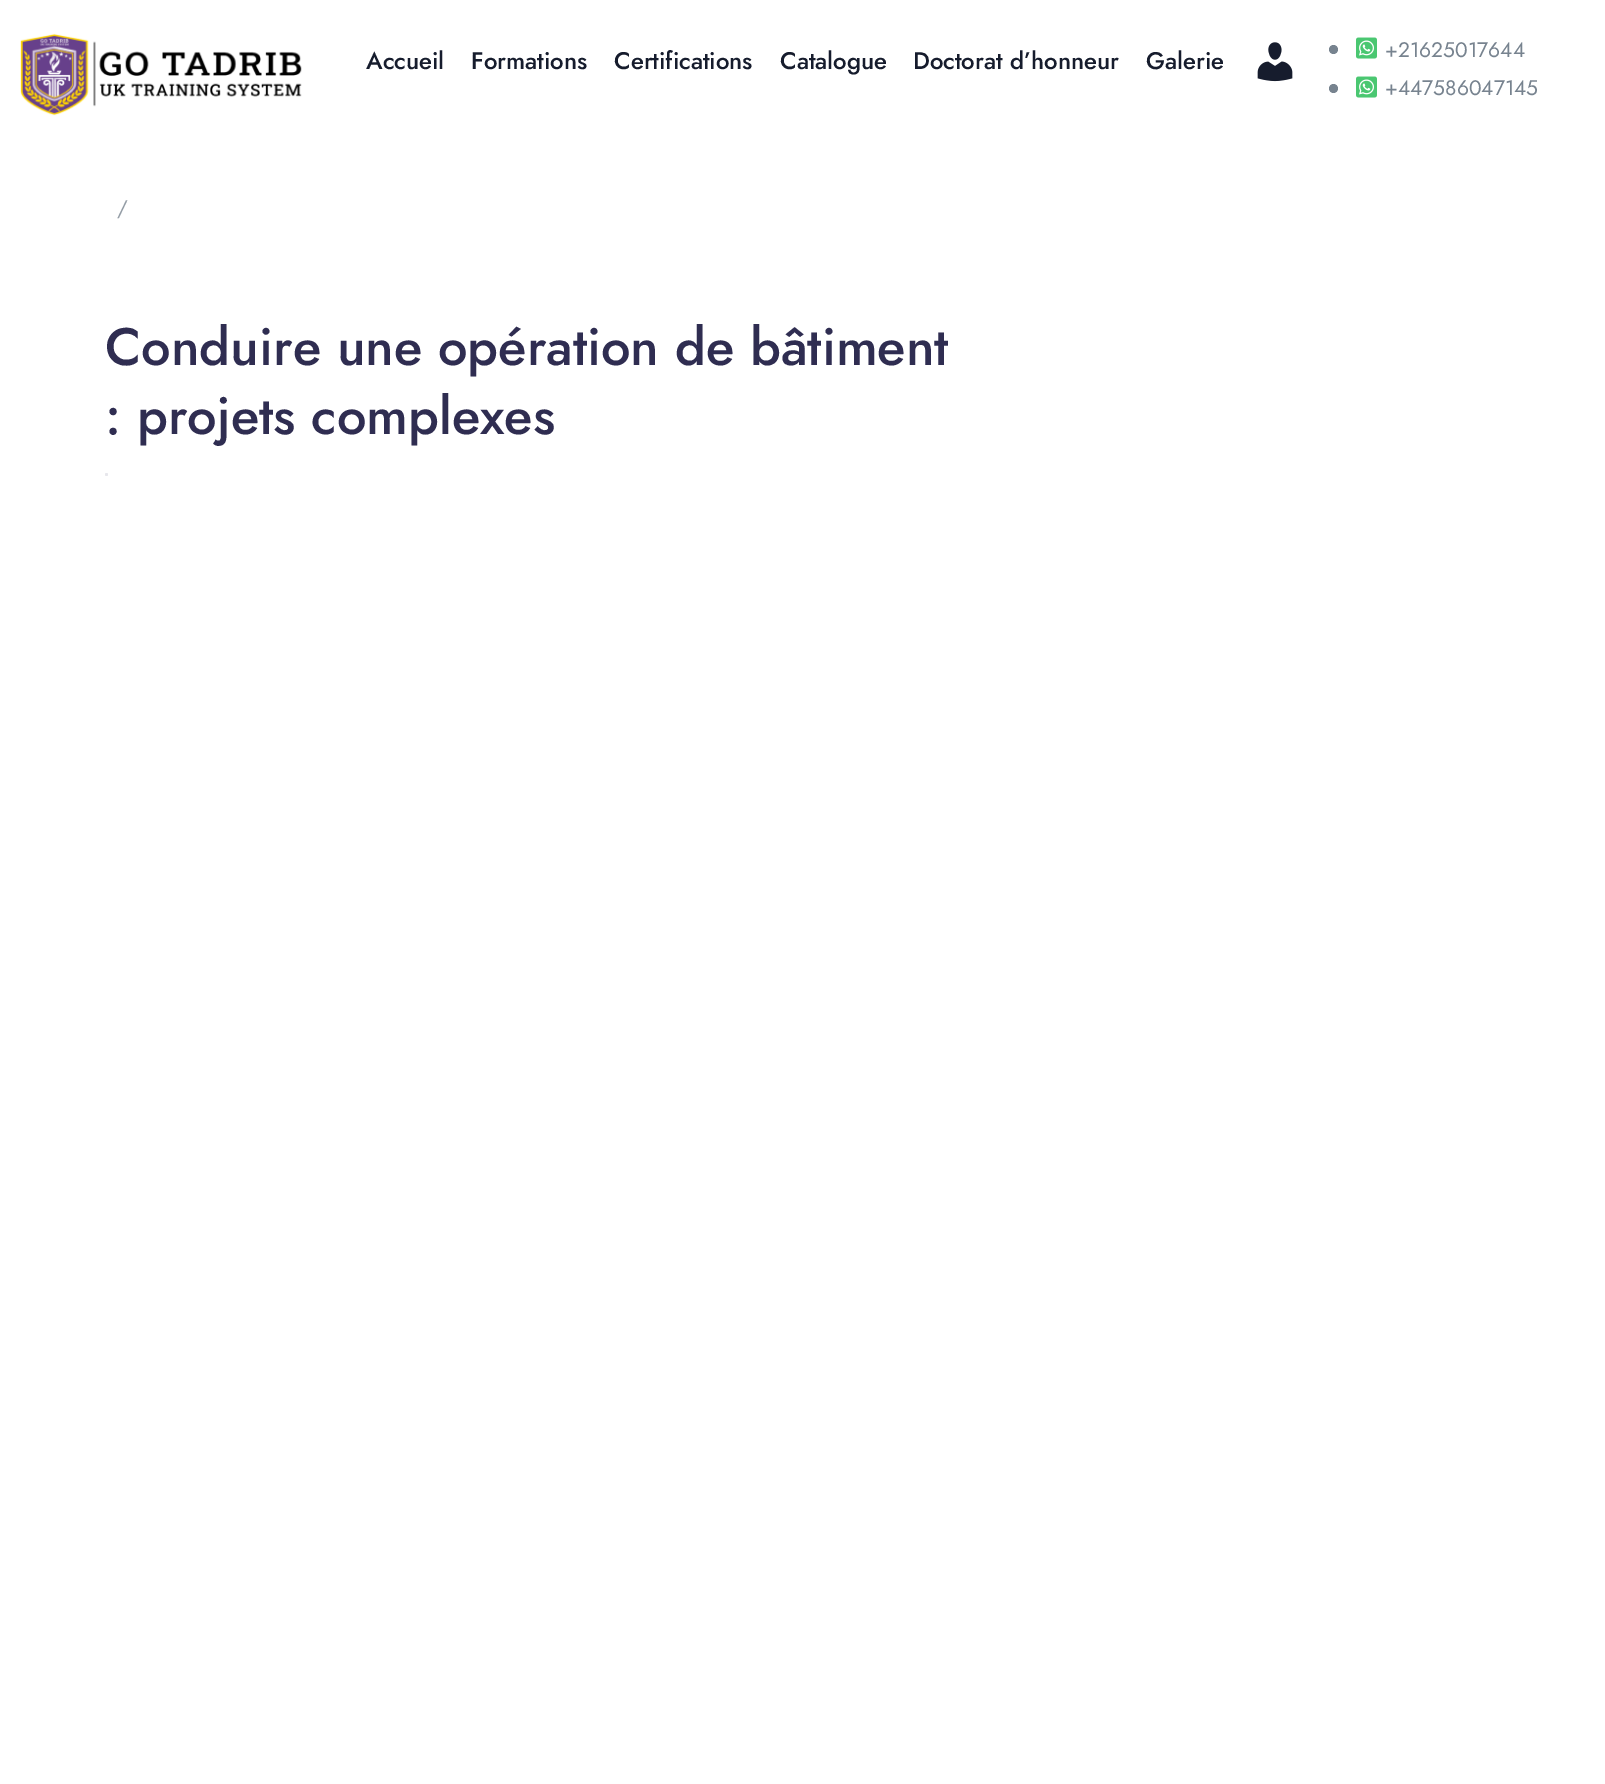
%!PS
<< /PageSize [1605 1784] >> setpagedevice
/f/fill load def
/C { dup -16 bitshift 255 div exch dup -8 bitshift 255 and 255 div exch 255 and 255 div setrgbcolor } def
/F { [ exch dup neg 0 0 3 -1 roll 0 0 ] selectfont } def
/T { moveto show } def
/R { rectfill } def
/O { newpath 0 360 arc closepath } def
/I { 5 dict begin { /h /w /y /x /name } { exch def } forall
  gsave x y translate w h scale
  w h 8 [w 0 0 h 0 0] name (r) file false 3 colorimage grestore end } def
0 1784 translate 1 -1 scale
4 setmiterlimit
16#FFFFFF C
0 0 1605 1784 R
(1.rgb) 20 33 282 83 I
/Jost-Medium 24 F
16#161C2D C
(Accueil) 366 69 T
(Formations) 471 69 T
(Certifications) 614 69 T
(Catalogue) 780 69 T
(Doctorat d’honneur) 913 69 T
(Galerie) 1146 69 T
(2.rgb) 1257 42 36 40 I
16#77838F C
1333.5 49.5 4.5 O f
(3.rgb) 1356 37 21 22 I
/Jost-Regular 21 F
(+21625017644) 1385 57 T
1333.5 88.5 4.5 O f
(3.rgb) 1356 76 21 22 I
(+447586047145) 1385 95 T
16#949DA6 C
(/) 117 215 T
/Jost-Medium 52.5 F
16#2F2D51 C
(Conduire une opération de bâtiment) 105 365 T
(: projets complexes) 105 434 T
16#E7E7EC C
106.5 474.5 1.5 O f
showpage
